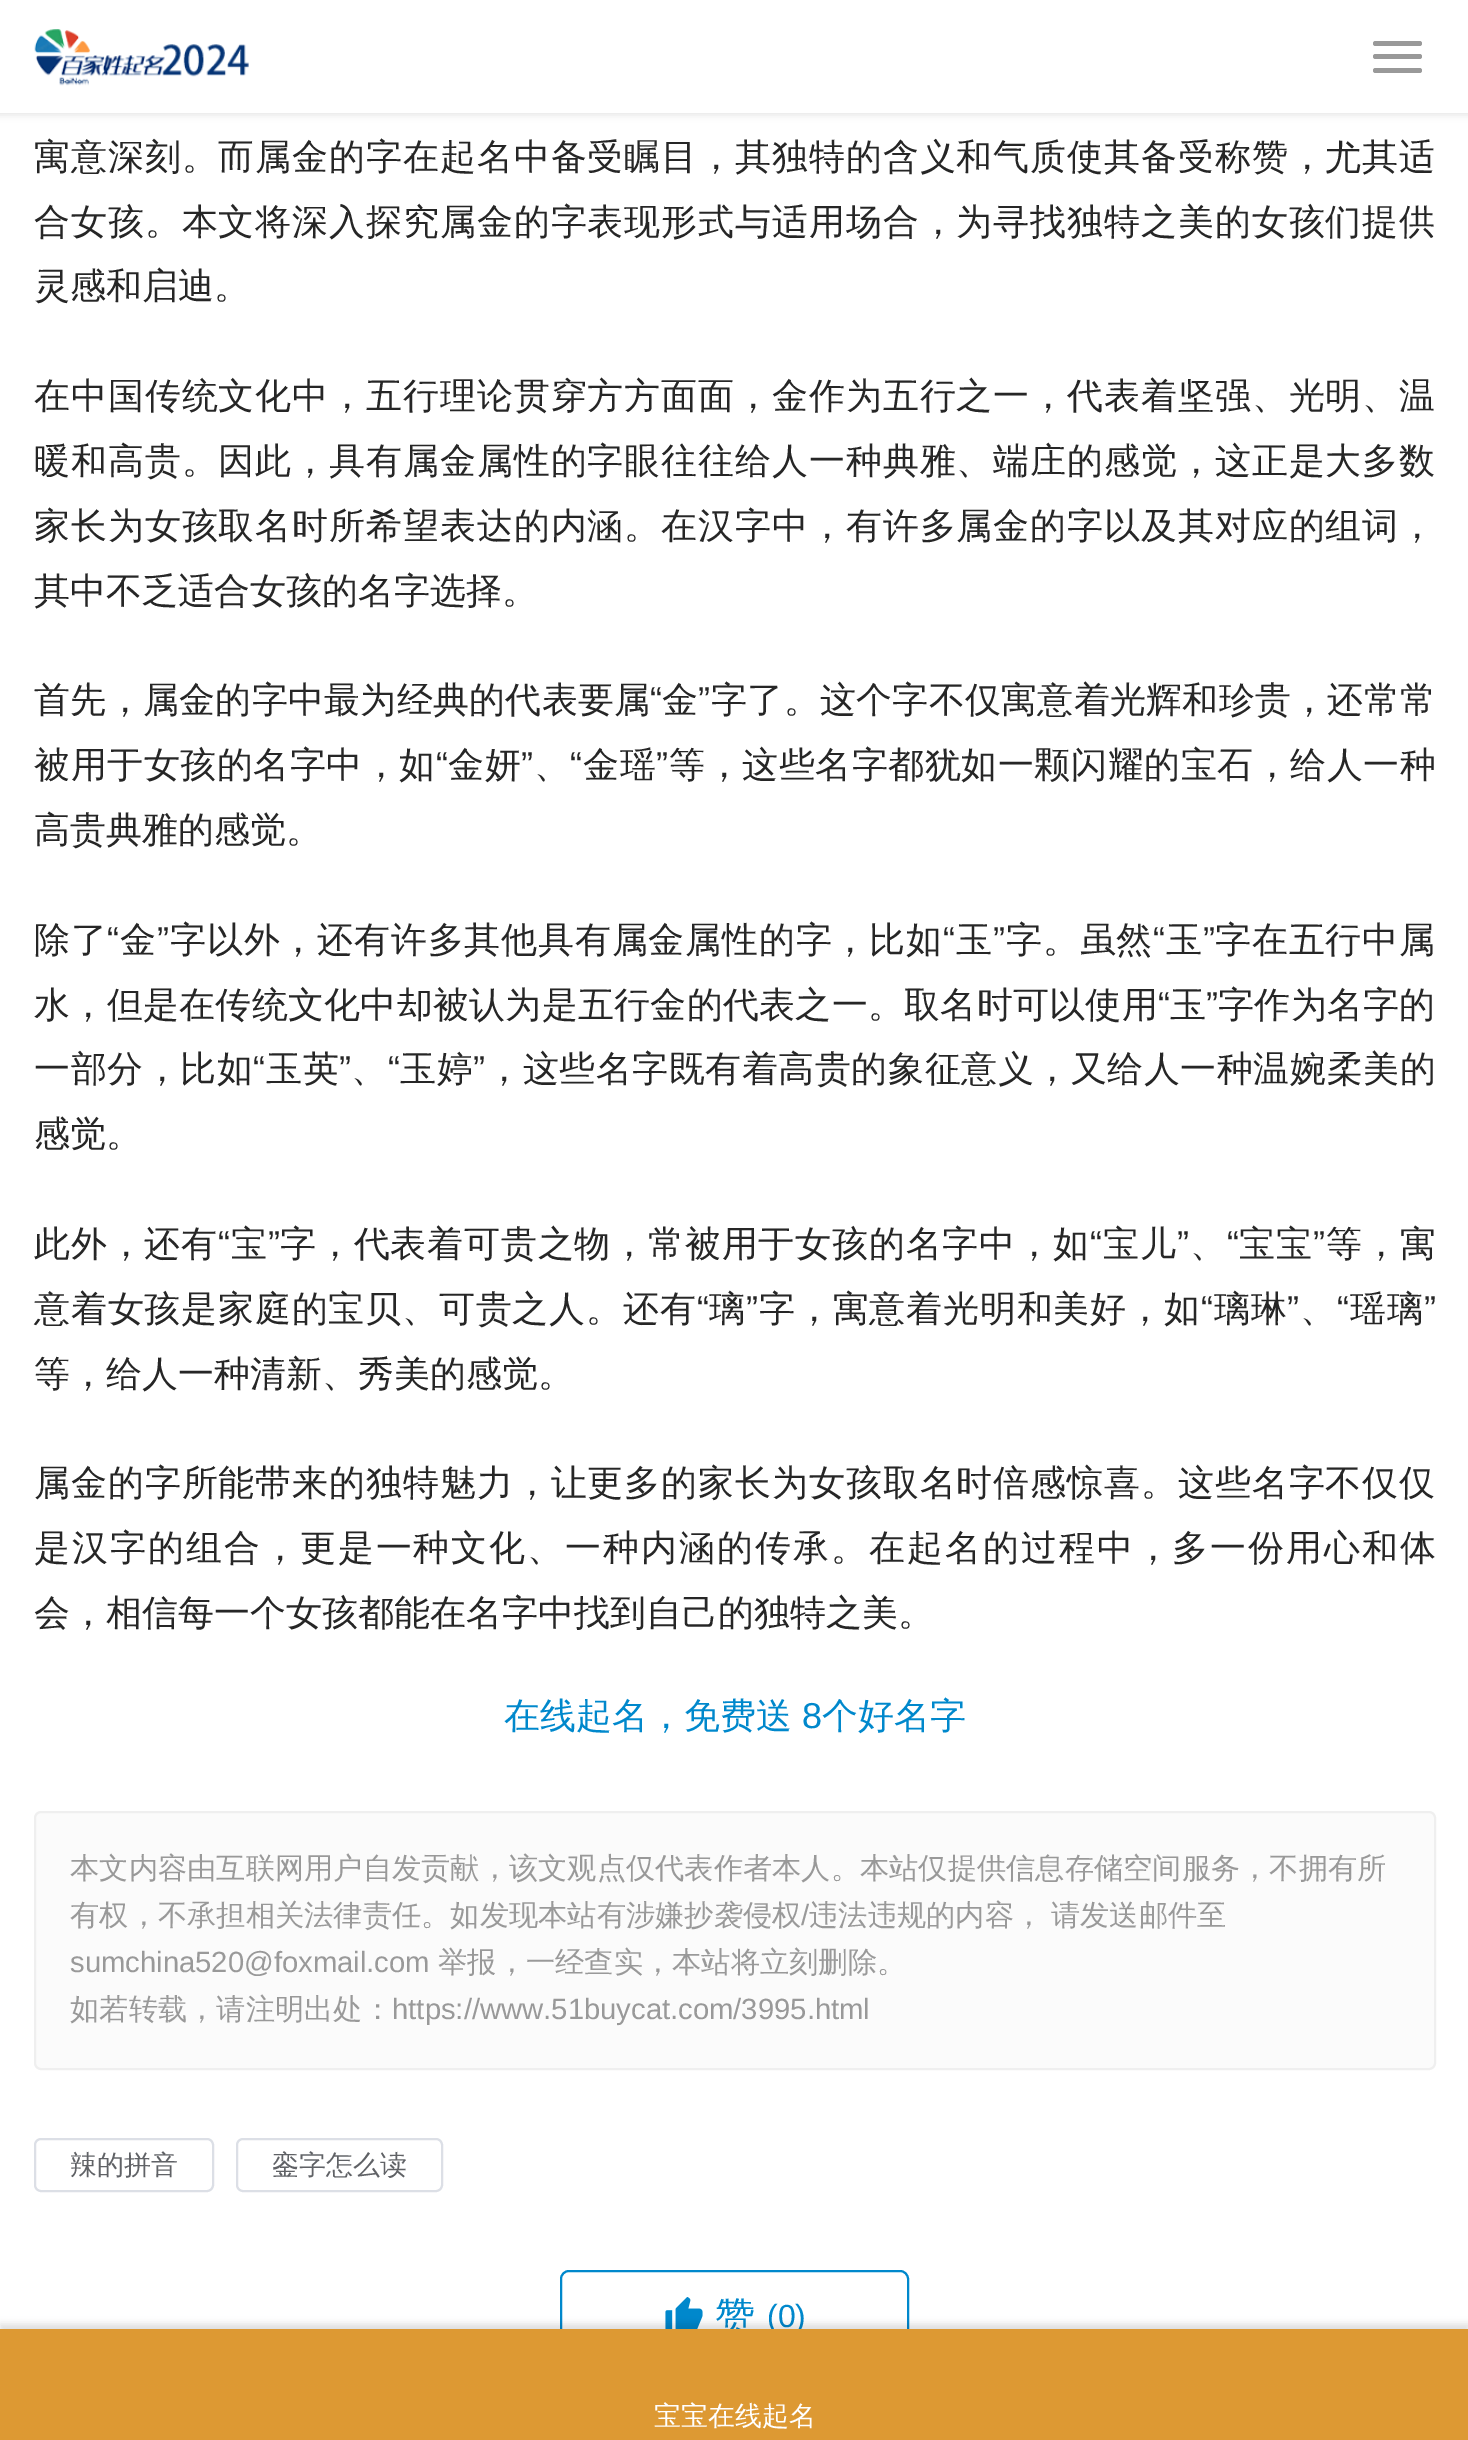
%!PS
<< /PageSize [1468 2440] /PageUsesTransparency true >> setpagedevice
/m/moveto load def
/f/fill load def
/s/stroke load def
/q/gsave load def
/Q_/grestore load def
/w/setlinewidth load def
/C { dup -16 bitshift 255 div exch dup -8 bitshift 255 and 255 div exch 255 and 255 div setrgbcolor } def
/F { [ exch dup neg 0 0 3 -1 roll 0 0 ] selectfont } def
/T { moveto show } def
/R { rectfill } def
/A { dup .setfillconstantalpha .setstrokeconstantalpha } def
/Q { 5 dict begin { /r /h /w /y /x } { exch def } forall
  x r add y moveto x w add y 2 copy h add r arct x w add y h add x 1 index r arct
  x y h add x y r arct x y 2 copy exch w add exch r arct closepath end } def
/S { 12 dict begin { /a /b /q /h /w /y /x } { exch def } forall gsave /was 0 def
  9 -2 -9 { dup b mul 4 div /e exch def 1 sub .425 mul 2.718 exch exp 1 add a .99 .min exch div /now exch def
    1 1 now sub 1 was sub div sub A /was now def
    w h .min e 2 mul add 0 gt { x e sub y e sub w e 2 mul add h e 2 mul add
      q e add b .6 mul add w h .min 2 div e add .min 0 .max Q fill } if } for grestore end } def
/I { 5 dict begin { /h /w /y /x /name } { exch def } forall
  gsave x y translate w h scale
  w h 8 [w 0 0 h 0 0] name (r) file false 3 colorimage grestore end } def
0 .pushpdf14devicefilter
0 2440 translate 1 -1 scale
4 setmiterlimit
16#FFFFFF C
0 0 1468 2440 R
16#000000 C
-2 -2 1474 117 0 3.5 .1 S
16#FFFFFF C
0 0 1468 113 R
(1.rgb) 34 29 215 57 I
16#999999 C
1373 41 49 5 2.5 Q f
1373 54 49 5 2.5 Q f
1373 68 49 5 2.5 Q f
/WenQuanYiZenHei-Medium 36 F
16#262626 C
34 169 m .9 0 (寓意深刻。而属金的字在起名中备受瞩目，其独特的含义和气质使其备受称赞，尤其适) ashow
34 234 m .9 0 (合女孩。本文将深入探究属金的字表现形式与适用场合，为寻找独特之美的女孩们提供) ashow
(灵感和启迪。) 34 298 T
34 408 m .9 0 (在中国传统文化中，五行理论贯穿方方面面，金作为五行之一，代表着坚强、光明、温) ashow
34 473 m .9 0 (暖和高贵。因此，具有属金属性的字眼往往给人一种典雅、端庄的感觉，这正是大多数) ashow
34 538 m .9 0 (家长为女孩取名时所希望表达的内涵。在汉字中，有许多属金的字以及其对应的组词，) ashow
(其中不乏适合女孩的名字选择。) 34 603 T
34 712 m .25 0 (首先，属金的字中最为经典的代表要属) ashow
/LiberationSans-Regular 36 F
650 712 m .25 0 (“) ashow
/WenQuanYiZenHei-Medium 36 F
662 712 m .25 0 (金) ashow
/LiberationSans-Regular 36 F
698 712 m .25 0 (”) ashow
/WenQuanYiZenHei-Medium 36 F
711 712 m .25 0 (字了。这个字不仅寓意着光辉和珍贵，还常常) ashow
34 777 m .55 0 (被用于女孩的名字中，如) ashow
/LiberationSans-Regular 36 F
436 777 m .55 0 (“) ashow
/WenQuanYiZenHei-Medium 36 F
448 777 m .55 0 (金妍) ashow
/LiberationSans-Regular 36 F
521 777 m .55 0 (”) ashow
570 777 m .55 0 (“) ashow
/WenQuanYiZenHei-Medium 36 F
583 777 m .55 0 (金瑶) ashow
/LiberationSans-Regular 36 F
656 777 m .55 0 (”) ashow
/WenQuanYiZenHei-Medium 36 F
669 777 m .55 0 (等，这些名字都犹如一颗闪耀的宝石，给人一种) ashow
534 777 m .55 0 (、) ashow
(高贵典雅的感觉。) 34 842 T
34 952 m .8 0 (除了) ashow
/LiberationSans-Regular 36 F
107 952 m .8 0 (“) ashow
/WenQuanYiZenHei-Medium 36 F
120 952 m .8 0 (金) ashow
/LiberationSans-Regular 36 F
157 952 m .8 0 (”) ashow
/WenQuanYiZenHei-Medium 36 F
170 952 m .8 0 (字以外，还有许多其他具有属金属性的字，比如) ashow
/LiberationSans-Regular 36 F
943 952 m .8 0 (“) ashow
/WenQuanYiZenHei-Medium 36 F
956 952 m .8 0 (玉) ashow
/LiberationSans-Regular 36 F
993 952 m .8 0 (”) ashow
/WenQuanYiZenHei-Medium 36 F
1006 952 m .8 0 (字。虽然) ashow
/LiberationSans-Regular 36 F
1153 952 m .8 0 (“) ashow
/WenQuanYiZenHei-Medium 36 F
1166 952 m .8 0 (玉) ashow
/LiberationSans-Regular 36 F
1203 952 m .8 0 (”) ashow
/WenQuanYiZenHei-Medium 36 F
1215 952 m .8 0 (字在五行中属) ashow
34 1017 m .25 0 (水，但是在传统文化中却被认为是五行金的代表之一。取名时可以使用) ashow
/LiberationSans-Regular 36 F
1158 1017 m .25 0 (“) ashow
/WenQuanYiZenHei-Medium 36 F
1170 1017 m .25 0 (玉) ashow
/LiberationSans-Regular 36 F
1206 1017 m .25 0 (”) ashow
/WenQuanYiZenHei-Medium 36 F
1218 1017 m .25 0 (字作为名字的) ashow
34 1081 m .55 0 (一部分，比如) ashow
/LiberationSans-Regular 36 F
253 1081 m .55 0 (“) ashow
/WenQuanYiZenHei-Medium 36 F
266 1081 m .55 0 (玉英) ashow
/LiberationSans-Regular 36 F
339 1081 m .55 0 (”) ashow
388 1081 m .55 0 (“) ashow
/WenQuanYiZenHei-Medium 36 F
400 1081 m .55 0 (玉婷) ashow
/LiberationSans-Regular 36 F
473 1081 m .55 0 (”) ashow
/WenQuanYiZenHei-Medium 36 F
486 1081 m .55 0 (，这些名字既有着高贵的象征意义，又给人一种温婉柔美的) ashow
351 1081 m .55 0 (、) ashow
(感觉。) 34 1146 T
34 1256 m .8 0 (此外，还有) ashow
/LiberationSans-Regular 36 F
218 1256 m .8 0 (“) ashow
/WenQuanYiZenHei-Medium 36 F
231 1256 m .8 0 (宝) ashow
/LiberationSans-Regular 36 F
268 1256 m .8 0 (”) ashow
/WenQuanYiZenHei-Medium 36 F
280 1256 m .8 0 (字，代表着可贵之物，常被用于女孩的名字中，如) ashow
/LiberationSans-Regular 36 F
1090 1256 m .8 0 (“) ashow
/WenQuanYiZenHei-Medium 36 F
1103 1256 m .8 0 (宝儿) ashow
/LiberationSans-Regular 36 F
1177 1256 m .8 0 (”) ashow
1227 1256 m .8 0 (“) ashow
/WenQuanYiZenHei-Medium 36 F
1239 1256 m .8 0 (宝宝) ashow
/LiberationSans-Regular 36 F
1313 1256 m .8 0 (”) ashow
/WenQuanYiZenHei-Medium 36 F
1326 1256 m .8 0 (等，寓) ashow
1190 1256 m .8 0 (、) ashow
34 1321 m .8 0 (意着女孩是家庭的宝贝、可贵之人。还有) ashow
/LiberationSans-Regular 36 F
697 1321 m .8 0 (“) ashow
/WenQuanYiZenHei-Medium 36 F
709 1321 m .8 0 (璃) ashow
/LiberationSans-Regular 36 F
746 1321 m .8 0 (”) ashow
/WenQuanYiZenHei-Medium 36 F
759 1321 m .8 0 (字，寓意着光明和美好，如) ashow
/LiberationSans-Regular 36 F
1201 1321 m .8 0 (“) ashow
/WenQuanYiZenHei-Medium 36 F
1214 1321 m .8 0 (璃琳) ashow
/LiberationSans-Regular 36 F
1287 1321 m .8 0 (”) ashow
1337 1321 m .8 0 (“) ashow
/WenQuanYiZenHei-Medium 36 F
1350 1321 m .8 0 (瑶璃) ashow
/LiberationSans-Regular 36 F
1424 1321 m .8 0 (”) ashow
/WenQuanYiZenHei-Medium 36 F
1300 1321 m .8 0 (、) ashow
(等，给人一种清新、秀美的感觉。) 34 1386 T
34 1495 m .9 0 (属金的字所能带来的独特魅力，让更多的家长为女孩取名时倍感惊喜。这些名字不仅仅) ashow
34 1560 m 1.95 0 (是汉字的组合，更是一种文化、一种内涵的传承。在起名的过程中，多一份用心和体) ashow
(会，相信每一个女孩都能在名字中找到自己的独特之美。) 34 1625 T
16#0088CC C
(在线起名，免费送) 504 1728 T
/LiberationSans-Regular 36 F
(8) 802 1728 T
/WenQuanYiZenHei-Medium 36 F
(个好名字) 822 1728 T
16#FBFBFB C
35 1812 1400 257 6 Q q f Q_
16#EFEFEF C
2 w
s
/WenQuanYiZenHei-Medium 29.25 F
16#999999 C
(本文内容由互联网用户自发贡献，该文观点仅代表作者本人。本站仅提供信息存储空间服务，不拥有所) 70 1878 T
(有权，不承担相关法律责任。如发现本站有涉嫌抄袭侵权) 70 1925 T
/LiberationSans-Regular 29.25 F
(/) 801 1925 T
/WenQuanYiZenHei-Medium 29.25 F
809 1925 m -1 0 32 (违法违规的内容， 请发送邮件至) widthshow
/LiberationSans-Regular 29.25 F
(sumchina520@foxmail.com) 70 1972 T
/WenQuanYiZenHei-Medium 29.25 F
(举报，一经查实，本站将立刻删除。) 438 1972 T
(如若转载，请注明出处：) 70 2019 T
/LiberationSans-Regular 29.25 F
(https://www.51buycat.com/3995.html) 392 2019 T
16#DCDFE6 C
35 2139 178 52 6 Q s
/WenQuanYiZenHei-Medium 27 F
16#606266 C
(辣的拼音) 70 2174 T
16#DCDFE6 C
237 2139 205 52 6 Q s
16#606266 C
(銮字怎么读) 272 2174 T
16#0088CC C
561 2271 347 88 8 Q s
(2.rgb) 665 2297 38 32 I
/WenQuanYiZenHei-Medium 40 F
(赞) 715 2330 T
/LiberationSans-Regular 32 F
(\(0\)) 767 2327 T
16#000000 C
0 2324 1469 113 0 3.5 .12 S
16#DD9933 C
0 2329 1468 111 R
/WenQuanYiZenHei-Medium 27 F
16#FFFFFF C
(宝宝在线起名) 654 2425 T
.poppdf14devicefilter showpage
